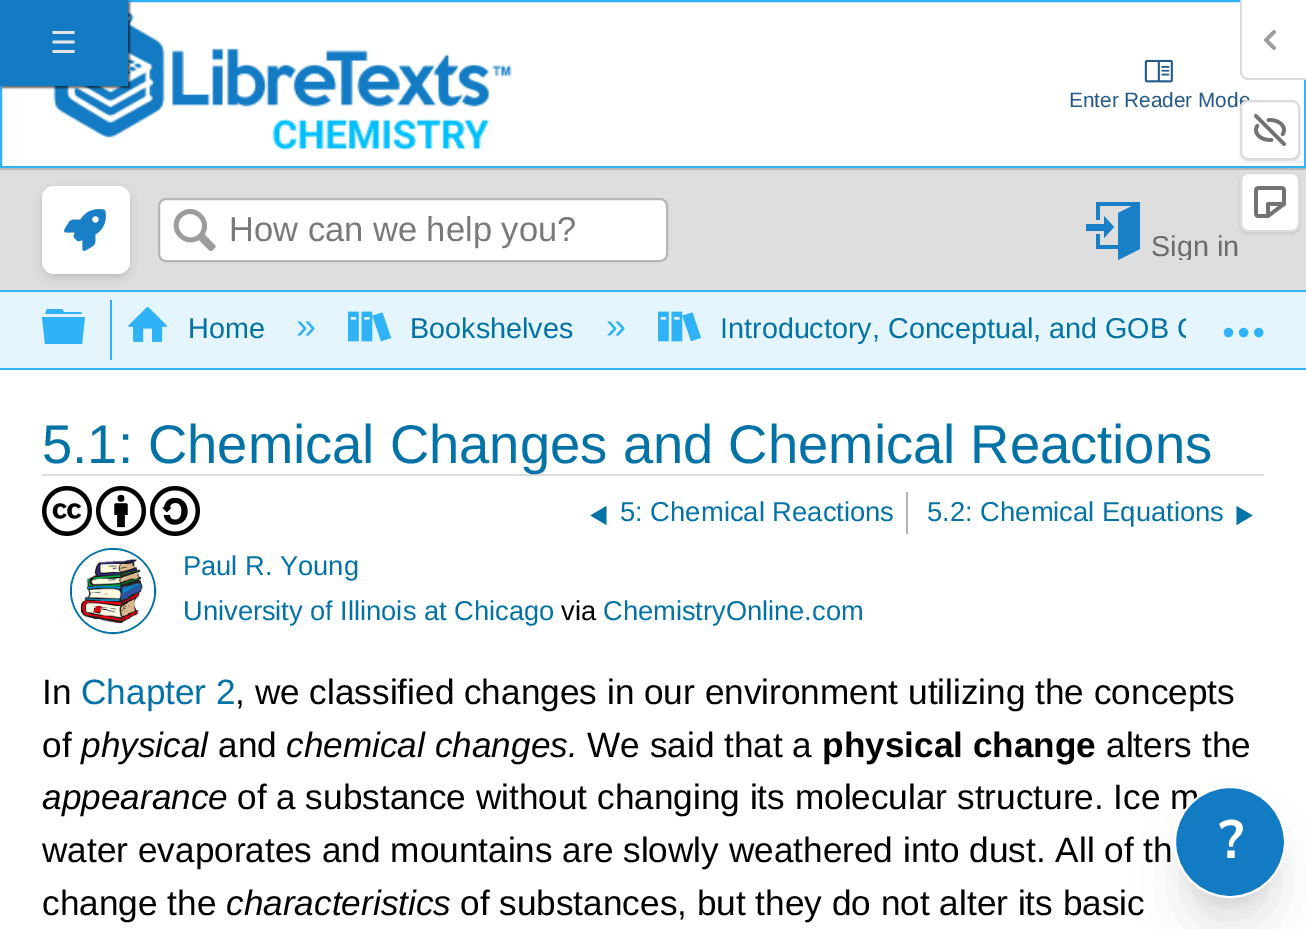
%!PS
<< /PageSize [1306 929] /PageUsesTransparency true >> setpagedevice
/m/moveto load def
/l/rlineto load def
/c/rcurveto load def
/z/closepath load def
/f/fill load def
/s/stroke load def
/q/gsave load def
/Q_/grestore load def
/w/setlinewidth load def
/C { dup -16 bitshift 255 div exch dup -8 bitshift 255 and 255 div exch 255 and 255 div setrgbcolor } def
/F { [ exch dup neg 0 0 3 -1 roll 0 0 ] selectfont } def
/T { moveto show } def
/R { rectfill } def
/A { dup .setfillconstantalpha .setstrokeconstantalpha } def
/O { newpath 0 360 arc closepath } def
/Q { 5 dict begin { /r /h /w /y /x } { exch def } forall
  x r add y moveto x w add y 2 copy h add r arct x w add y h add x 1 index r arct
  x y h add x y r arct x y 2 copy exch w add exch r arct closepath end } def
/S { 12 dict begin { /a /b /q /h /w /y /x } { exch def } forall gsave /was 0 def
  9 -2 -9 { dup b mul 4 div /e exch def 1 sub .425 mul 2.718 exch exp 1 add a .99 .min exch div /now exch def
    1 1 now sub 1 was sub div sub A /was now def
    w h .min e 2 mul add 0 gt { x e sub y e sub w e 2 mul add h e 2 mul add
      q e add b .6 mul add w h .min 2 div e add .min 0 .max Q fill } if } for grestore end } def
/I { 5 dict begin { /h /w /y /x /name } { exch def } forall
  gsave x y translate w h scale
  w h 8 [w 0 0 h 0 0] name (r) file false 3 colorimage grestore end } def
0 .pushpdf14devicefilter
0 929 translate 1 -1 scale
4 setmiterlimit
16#FFFFFF C
0 0 1306 929 R
16#30B3F6 C
2 w
1 1 1304 166 rectstroke
(4.rgb) 53 13 459 137 I
16#000000 C
2 2 128 86 0 1 .6 S
16#127BC4 C
0 0 128 86 R
/DejaVuSans-Regular 30 F
16#E5E5E5 C
50 53 m 1 0 (☰) ashow
16#FFFFFF C
1242 0 m 64 0 l 0 78 l -58 0 l -3.5 0 -6 -2.5 -6 -6 c z f
16#DBDBDB C
1240 0 m 66 0 l 0 80 l -58 0 l -4 0 -8 -4 -8 -8 c z 1242 0 m 64 0 l 0 78 l -58 0 l -3 0 -6 -3 -6 -6 c z eofill
(1.rgb) 1264 30 12 20 I
16#000000 C
1240 102 60 60 8 1 .1 S
/LiberationSans-Regular 20.75 F
16#235A8B C
(Enter Reader Mode) 1069 107 T
16#FFFFFF C
1241 101 58 58 7 Q q f Q_
16#DBDBDB C
s
(2.rgb) 1254 114 32 32 I
16#DEDEDE C
0 170 1306 120 R
16#000000 C
1240 174 60 60 8 1 .1 S
16#FFFFFF C
1241 173 58 58 7 Q q f Q_
16#DBDBDB C
s
(3.rgb) 1254 186 32 32 I
(5.rgb) 1144 59 29 24 I
16#B6B6B6 C
0 168 1306 2 R
16#30B3F6 C
0 290 1306 2 R
16#080808 C
44 192 84 84 10 5 .2 S
16#FFFFFF C
42 186 88 88 12 Q f
(6.rgb) 64 209 42 42 I
159 199 508 62 7 Q q f Q_
16#B6B6B6 C
s
(7.rgb) 173 209 43 42 I
/LiberationSans-Regular 34.5 F
16#797979 C
(How can we help you?) 229 241 T
16#197FC6 C
1104 231 m -18 0 l 0 -7 l 18 0 l 0 -8 l 10 11 l -10 11 l z 1140 202 m 0 47 l -22 11 l 0 -11 l -22 0 l 0 -15 l 4 0 l 0 11 l 18 0 l 0 -32 l 14 -7 l -32 0 l 0 14 l -4 0 l 0 -18 l z f
q
1082 200 168 60 rectclip
/LiberationSans-Regular 28.75 F
16#6B6B6B C
(Sign in) 1151 256 T
Q_
16#E5F5FE C
0 292 1306 76 R
16#30B3F6 C
0 368 1306 2 R
42 317 m 43 0 l -3 27 l -37 0 l z 81 312 m 1 2 l -37 0 l 2 -5 l 15 0 l 2 3 l z f
110 300 2 60 R
(8.rgb) 128 307 39 35 I
/LiberationSans-Regular 28.75 F
16#0372A6 C
(Home) 188 338 T
/LiberationSans-Regular 36 F
16#30B3F6 C
(») 296 338 T
(9.rgb) 348 311 44 31 I
/LiberationSans-Regular 28.75 F
16#0372A6 C
(Bookshelves) 410 338 T
/LiberationSans-Regular 36 F
16#30B3F6 C
(») 606 338 T
(9.rgb) 658 311 44 31 I
q
112 300 1074 60 rectclip
/LiberationSans-Regular 28.75 F
16#0372A6 C
(Introductory, Conceptual, and GOB C) 720 338 T
Q_
(10.rgb) 1223 327 41 11 I
16#DDDDDD C
42 474 1222 2 R
/LiberationSans-Regular 54.4 F
16#0372A6 C
(5.1: Chemical Changes and Chemical Reactions) 42 463 T
(11.rgb) 42 486 50 50 I
(12.rgb) 96 486 50 50 I
(13.rgb) 150 486 50 50 I
16#B4B4B4 C
906 492 2 42 R
16#0372A6 C
606.5 506 m 0 19 l -16 -9.5 l z f
/LiberationSans-Regular 27.4 F
(5: Chemical Reactions) 620 521 T
(5.2: Chemical Equations) 927 521 T
1236.5 506 m 0 19 l 16 -9.5 l z f
113 591 42 O s
(14.rgb) 72 550 82 82 I
/LiberationSans-Regular 27.25 F
(Paul R. Young) 183 575 T
(University of Illinois at Chicago) 183 620 T
16#000000 C
(via) 561 620 T
16#0372A6 C
(ChemistryOnline.com) 603 620 T
/LiberationSans-Regular 35.2 F
16#000000 C
(In) 42 704 T
16#0372A6 C
(Chapter 2) 81 704 T
16#000000 C
(, we classified changes in our environment utilizing the concepts) 235 704 T
(of) 42 757 T
/LiberationSans-Italic 35.2 F
(physical) 81 757 T
/LiberationSans-Regular 35.2 F
(and) 218 757 T
/LiberationSans-Italic 35.2 F
(chemical changes.) 286 757 T
/LiberationSans-Regular 35.2 F
(We said that a) 587 757 T
/LiberationSans-Bold 35.2 F
(physical change) 822 757 T
/LiberationSans-Regular 35.2 F
(alters the) 1106 757 T
/LiberationSans-Italic 35.2 F
(appearance) 42 809 T
/LiberationSans-Regular 35.2 F
(of a substance without changing its molecular structure. Ice m) 237 809 T
(water evaporates and mountains are slowly weathered into dust. All of th) 42 862 T
(change the) 42 915 T
/LiberationSans-Italic 35.2 F
(characteristics) 226 915 T
/LiberationSans-Regular 35.2 F
(of substances, but they do not alter its basic) 460 915 T
1186 814 88 88 44 10 .1 S
1184 836 92 92 46 25 .1 S
16#127BC4 C
1230 842 55 O q f Q_
16#FFFFFF C
s
/NunitoSans-Bold 54 F
(?) 1219 858 T
.poppdf14devicefilter showpage
